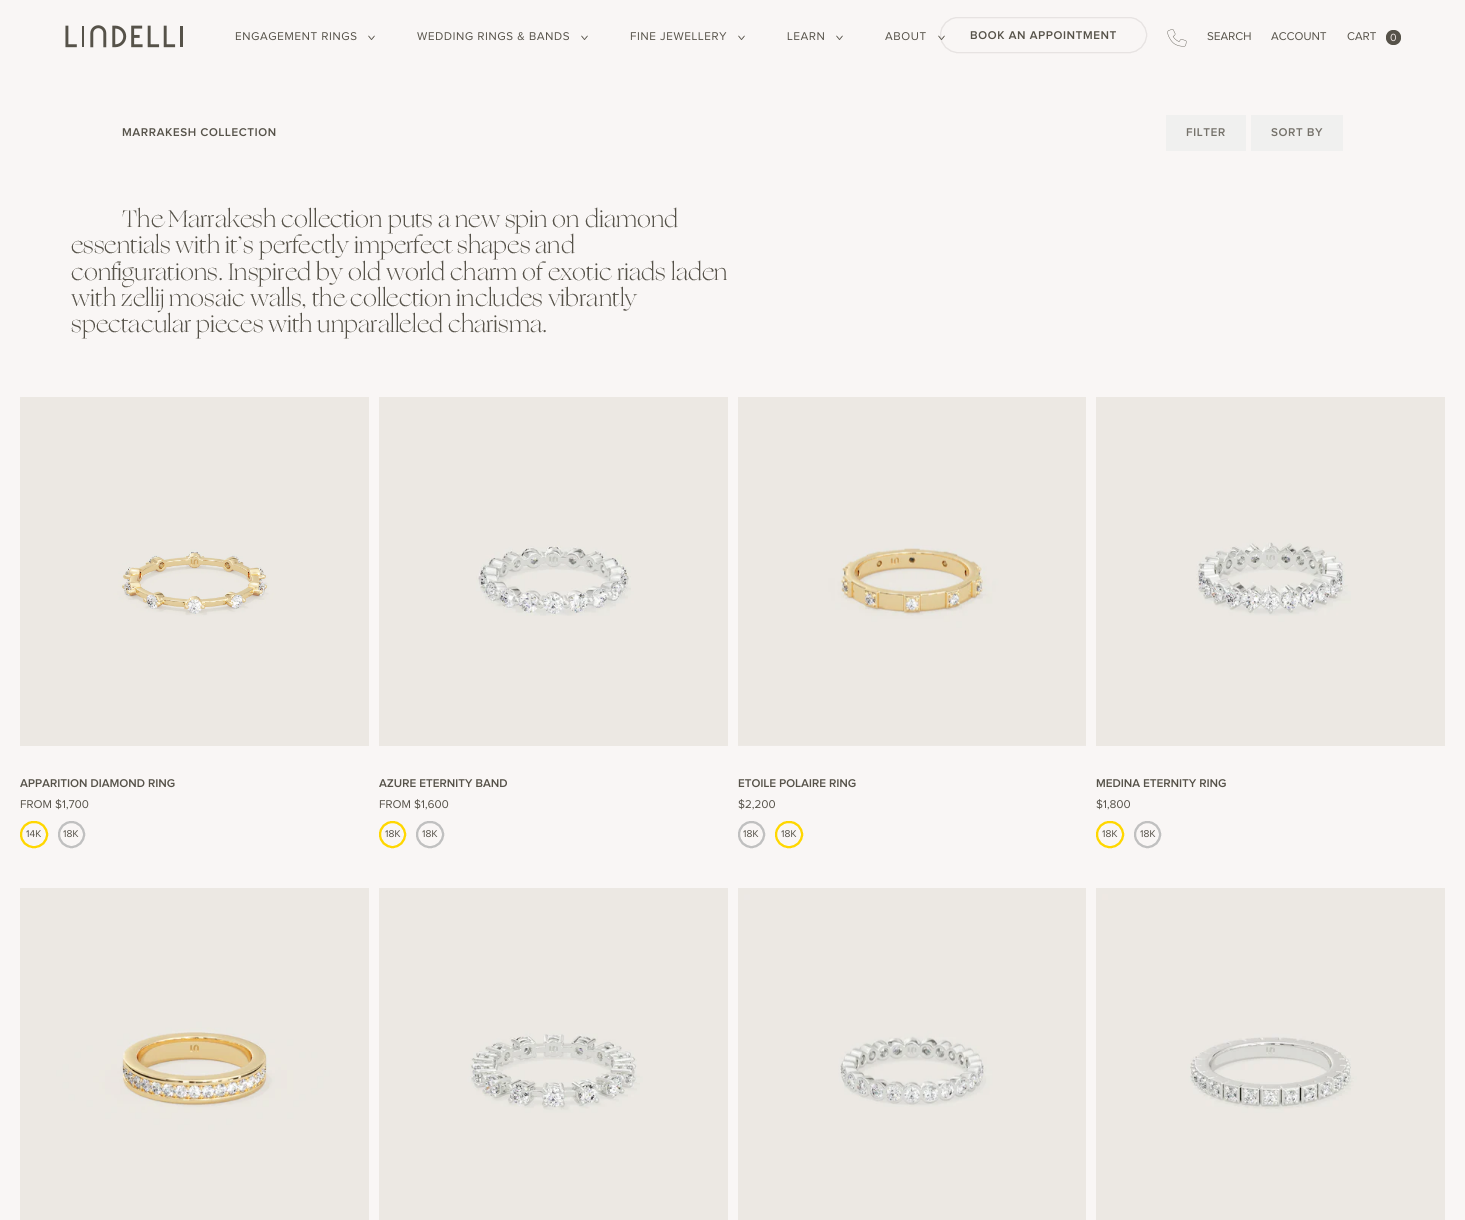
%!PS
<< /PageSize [1465 1220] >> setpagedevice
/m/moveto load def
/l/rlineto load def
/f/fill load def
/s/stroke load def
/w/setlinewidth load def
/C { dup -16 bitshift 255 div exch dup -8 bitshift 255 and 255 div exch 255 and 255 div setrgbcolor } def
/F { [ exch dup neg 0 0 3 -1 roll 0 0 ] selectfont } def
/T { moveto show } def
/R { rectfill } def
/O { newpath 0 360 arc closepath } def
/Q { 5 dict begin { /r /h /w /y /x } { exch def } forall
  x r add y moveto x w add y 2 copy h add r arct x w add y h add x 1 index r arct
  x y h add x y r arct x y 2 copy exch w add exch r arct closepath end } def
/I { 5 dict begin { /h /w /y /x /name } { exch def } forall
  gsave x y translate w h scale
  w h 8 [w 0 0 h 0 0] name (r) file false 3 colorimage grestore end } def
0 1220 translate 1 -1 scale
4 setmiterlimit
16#F9F6F5 C
0 0 1465 1220 R
(1.rgb) 65 25 118 23 I
(2.rgb) 235 32 122 9 I
16#565249 C
.5 w
1 setlinecap
368.5 36 m 3 3.5 l 3 -3.5 l s
(3.rgb) 417 32 152 9 I
581.5 36 m 3 3.5 l 3 -3.5 l s
(4.rgb) 630 32 97 9 I
738.5 36 m 3 3.5 l 3 -3.5 l s
(5.rgb) 787 32 37 8 I
836.5 36 m 3 3.5 l 3 -3.5 l s
(6.rgb) 885 32 41 9 I
16#E7E3E2 C
1 w
0 setlinecap
940.5 17.5 206 35 17.5 Q s
16#565249 C
.5 w
1 setlinecap
938.5 36 m 3 3.5 l 3 -3.5 l s
(7.rgb) 970 31 146 9 I
(8.rgb) 1167 29 20 18 I
(9.rgb) 1207 32 44 9 I
(10.rgb) 1271 32 56 9 I
(11.rgb) 1347 32 29 9 I
1393.5 37.5 7.5 O f
(12.rgb) 1390 33 7 9 I
(13.rgb) 122 128 154 9 I
16#F0F0EF C
1166 115 80 36 R
(14.rgb) 1186 128 39 8 I
1251 115 92 36 R
(15.rgb) 1271 128 52 9 I
/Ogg-Light 23.9 F
16#565249 C
122 227 m -.25 0 32 (The Marrakesh collection puts a new spin on diamond) widthshow
71 253 m -.25 0 32 (essentials with it’s perfectly imperfect shapes and) widthshow
(configurations. Inspired by old world charm of exotic riads laden) 71 280 T
71 306 m -.25 0 32 (with zellij mosaic walls, the collection includes vibrantly) widthshow
71 332 m -.5 0 32 (spectacular pieces with unparalleled charisma.) widthshow
(16.rgb) 20 397 349 349 I
(17.rgb) 20 779 155 9 I
(18.rgb) 20 800 31 9 I
(19.rgb) 55 799 34 11 I
16#FFD700 C
2 w
0 setlinecap
21 822 26 25 12.5 Q s
(20.rgb) 26 830 15 7 I
16#C0C0C0 C
71.5 834.5 12.5 O s
(21.rgb) 63 830 16 8 I
(22.rgb) 379 397 349 349 I
(23.rgb) 379 779 128 9 I
(18.rgb) 379 800 31 9 I
(24.rgb) 414 799 35 11 I
16#FFD700 C
392.5 834.5 12.5 O s
(21.rgb) 385 830 16 8 I
16#C0C0C0 C
417 822 26 25 12.5 Q s
(21.rgb) 422 830 16 8 I
(25.rgb) 738 397 348 349 I
(26.rgb) 738 779 118 9 I
(27.rgb) 738 799 37 11 I
751.5 834.5 12.5 O s
(21.rgb) 743 830 16 8 I
16#FFD700 C
776 822 26 25 12.5 Q s
(21.rgb) 781 830 16 8 I
(28.rgb) 1096 397 349 349 I
(29.rgb) 1096 779 130 9 I
(30.rgb) 1096 799 34 11 I
1097 822 26 25 12.5 Q s
(21.rgb) 1102 830 16 8 I
16#C0C0C0 C
1147.5 834.5 12.5 O s
(21.rgb) 1140 830 16 8 I
(31.rgb) 20 888 349 332 I
(32.rgb) 379 888 349 332 I
(33.rgb) 738 888 348 332 I
(34.rgb) 1096 888 349 332 I
showpage
